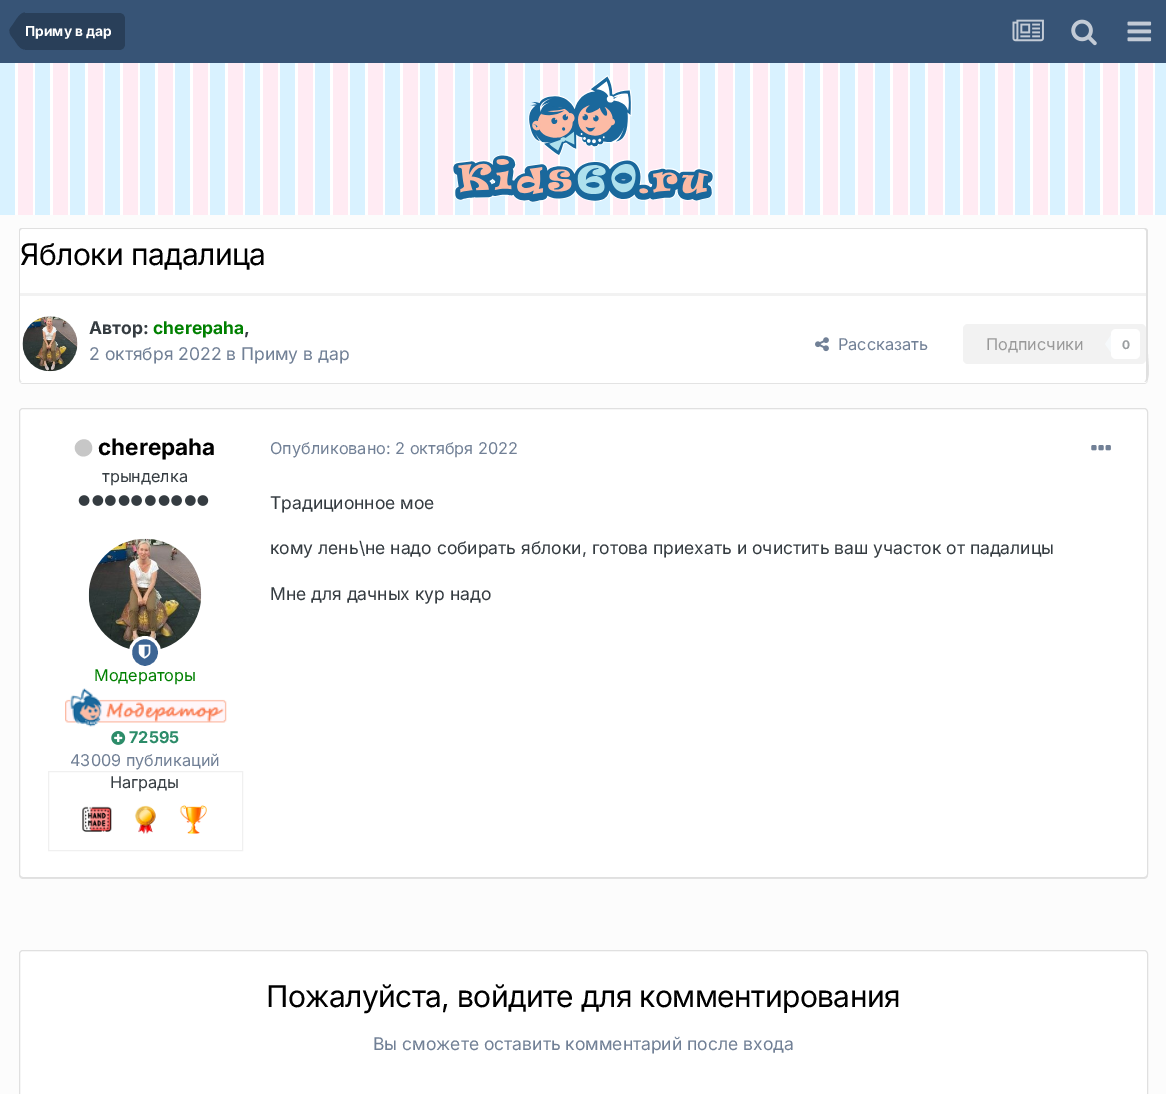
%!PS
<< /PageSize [1166 1094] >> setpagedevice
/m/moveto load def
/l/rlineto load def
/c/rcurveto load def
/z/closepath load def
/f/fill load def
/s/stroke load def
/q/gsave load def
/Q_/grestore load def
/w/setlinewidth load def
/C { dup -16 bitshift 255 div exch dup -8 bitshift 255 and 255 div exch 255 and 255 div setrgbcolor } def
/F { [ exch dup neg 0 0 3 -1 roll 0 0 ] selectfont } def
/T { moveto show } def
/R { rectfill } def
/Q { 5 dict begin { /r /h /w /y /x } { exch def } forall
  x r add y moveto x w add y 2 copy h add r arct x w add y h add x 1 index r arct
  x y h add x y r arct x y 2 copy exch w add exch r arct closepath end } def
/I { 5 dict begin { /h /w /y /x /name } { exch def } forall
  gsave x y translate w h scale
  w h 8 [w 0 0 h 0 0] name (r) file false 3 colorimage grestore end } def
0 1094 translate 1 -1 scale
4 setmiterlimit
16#FFFFFF C
0 0 1166 1094 R
(1.rgb) 0 63 1166 152 I
16#375476 C
0 0 1166 63 R
16#293F59 C
25 13 m 94 0 l 3.5 0 6 2.5 6 6 c 0 25 l 0 3.5 -2.5 6 -6 6 c -94 0 l z f
25 49.5 m -5.5 0 -8.5 -6.5 -11 -10 c -2 -2.5 -4.5 -5 -4.5 -8.5 c 15.5 0 l z 25 12.5 m 0 18.5 l -15.5 0 l -.5 -2 2 -4.5 3 -6 c 3 -4 7 -12.5 12.5 -12.5 c z f
/Inter-Bold 13.75 F
16#FFFFFF C
(Приму в дар) 25 36 T
(2.rgb) 1012 19 32 23 I
(3.rgb) 1071 19 26 27 I
(4.rgb) 1127 21 25 21 I
(5.rgb) 453 75 261 128 I
16#FCFCFC C
0 215 1166 879 R
16#E3E3E3 C
19 380 m 0 2 2 4 4 4 c 1121 0 l 2 0 4 -2 4 -4 c 0 -147 l -1 -2 l 1 123 l 0 7 4 28 -4 28 c -1122 0 l -1 0 -2 0 -3 -2 c z f
16#FFFFFF C
19 228 1129 155 4 Q f
16#E0E0E0 C
22 228 m 1122 0 l 2 0 4 1 4 3 c 0 148 l 0 2 -2 3 -4 3 c -1122 0 l -2 0 -3 -1 -3 -3 c 0 -148 l 0 -2 1 -3 3 -3 c z 22 229 m 1122 0 l 1 0 2 1 2 2 c 0 148 l 0 2 -1 3 -2 3 c -1122 0 l -1 0 -2 -1 -2 -3 c 0 -148 l 0 -1 1 -2 2 -2 c z eofill
/Inter-Regular 30 F
16#000000 C
20 265 m -.6 0 (Яблоки падалица) ashow
16#F2F2F2 C
20 293 1126 3 R
(6.rgb) 22 316 56 56 I
/Inter-Bold 17.5 F
16#353C41 C
(Автор:) 89 334 T
16#008000 C
(cherepaha) 153 334 T
16#353C41 C
(,) 244 334 T
/Inter-Regular 17.5 F
16#718096 C
(2 октября 2022 в Приму в дар) 89 360 T
(7.rgb) 815 337 14 15 I
/Inter-Regular 16.25 F
(Рассказать) 838 350 T
16#F2F2F2 C
963 324 183 40 5 Q f
16#999999 C
(Подписчики) 986 350 T
16#F6F9FB C
1111 335 m 0 17.5 l -6 -8.5 l z f
16#FFFFFF C
1111 329 29 30 5 Q f
/Inter-Bold 12 F
16#9A9EA0 C
(0) 1122 349 T
16#E3E3E3 C
19 875 m 0 2 2 4 4 4 c 1121 0 l 2 0 4 -2 4 -4 c 0 -462 l -1 -2 l 1 463 l 0 2 -2 4 -4 4 c -1122 0 l -1 0 -2 -1 -3 -3 c z f
16#FFFFFF C
19.5 408.5 1128 469 3.5 Q q f Q_
16#E0E0E0 C
s
16#C7C7C7 C
91 443.5 m 5.5 10 -9 18.5 -15 8.5 c -5.5 -9.5 9.5 -18 15 -8.5 c z f
/Inter-Bold 22.5 F
16#000000 C
(cherepaha) 98 455 T
/Inter-Regular 16.25 F
16#353C41 C
(трынделка) 102 482 T
(8.rgb) 78 495 12 11 I
(9.rgb) 92 495 12 11 I
(10.rgb) 105 495 11 11 I
(8.rgb) 118 495 12 11 I
(11.rgb) 131 495 11 11 I
(10.rgb) 145 495 11 11 I
(8.rgb) 158 495 12 11 I
(11.rgb) 171 495 11 11 I
(10.rgb) 185 495 11 11 I
(9.rgb) 197 495 12 11 I
(12.rgb) 88 538 114 112 I
16#3D6594 C
130.5 637.5 29 30 14.5 Q q f Q_
16#FFFFFF C
3 w
s
(13.rgb) 138 644 13 15 I
16#008000 C
(Модераторы) 94 681 T
(14.rgb) 65 688 162 39 I
(15.rgb) 111 731 15 14 I
/Inter-Bold 16.25 F
16#2C8C69 C
(72595) 129 743 T
/Inter-Regular 16.25 F
16#718096 C
(43009 публикаций) 70 766 T
16#F0F0F0 C
1 w
48.5 771.5 194 79 rectstroke
16#353C41 C
(Награды) 110 788 T
(16.rgb) 82 806 30 26 I
(17.rgb) 134 805 22 29 I
(18.rgb) 179 805 28 29 I
16#718096 C
(Опубликовано: 2 октября 2022) 270 454 T
(19.rgb) 1091 445 20 6 I
/Inter-Regular 17.5 F
16#353C41 C
(Традиционное мое) 270 509 T
(кому лень\\не надо собирать яблоки, готова приехать и очистить ваш участок от падалицы) 270 554 T
(Мне для дачных кур надо) 270 600 T
16#FFFFFF C
19.5 950.5 1128 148 3.5 Q q f Q_
16#E0E0E0 C
s
/Inter-Regular 30 F
16#000000 C
266 1007 m -.6 0 (Пожалуйста, войдите для комментирования) ashow
/Inter-Regular 17.5 F
16#718096 C
(Вы сможете оставить комментарий после входа) 373 1050 T
showpage
